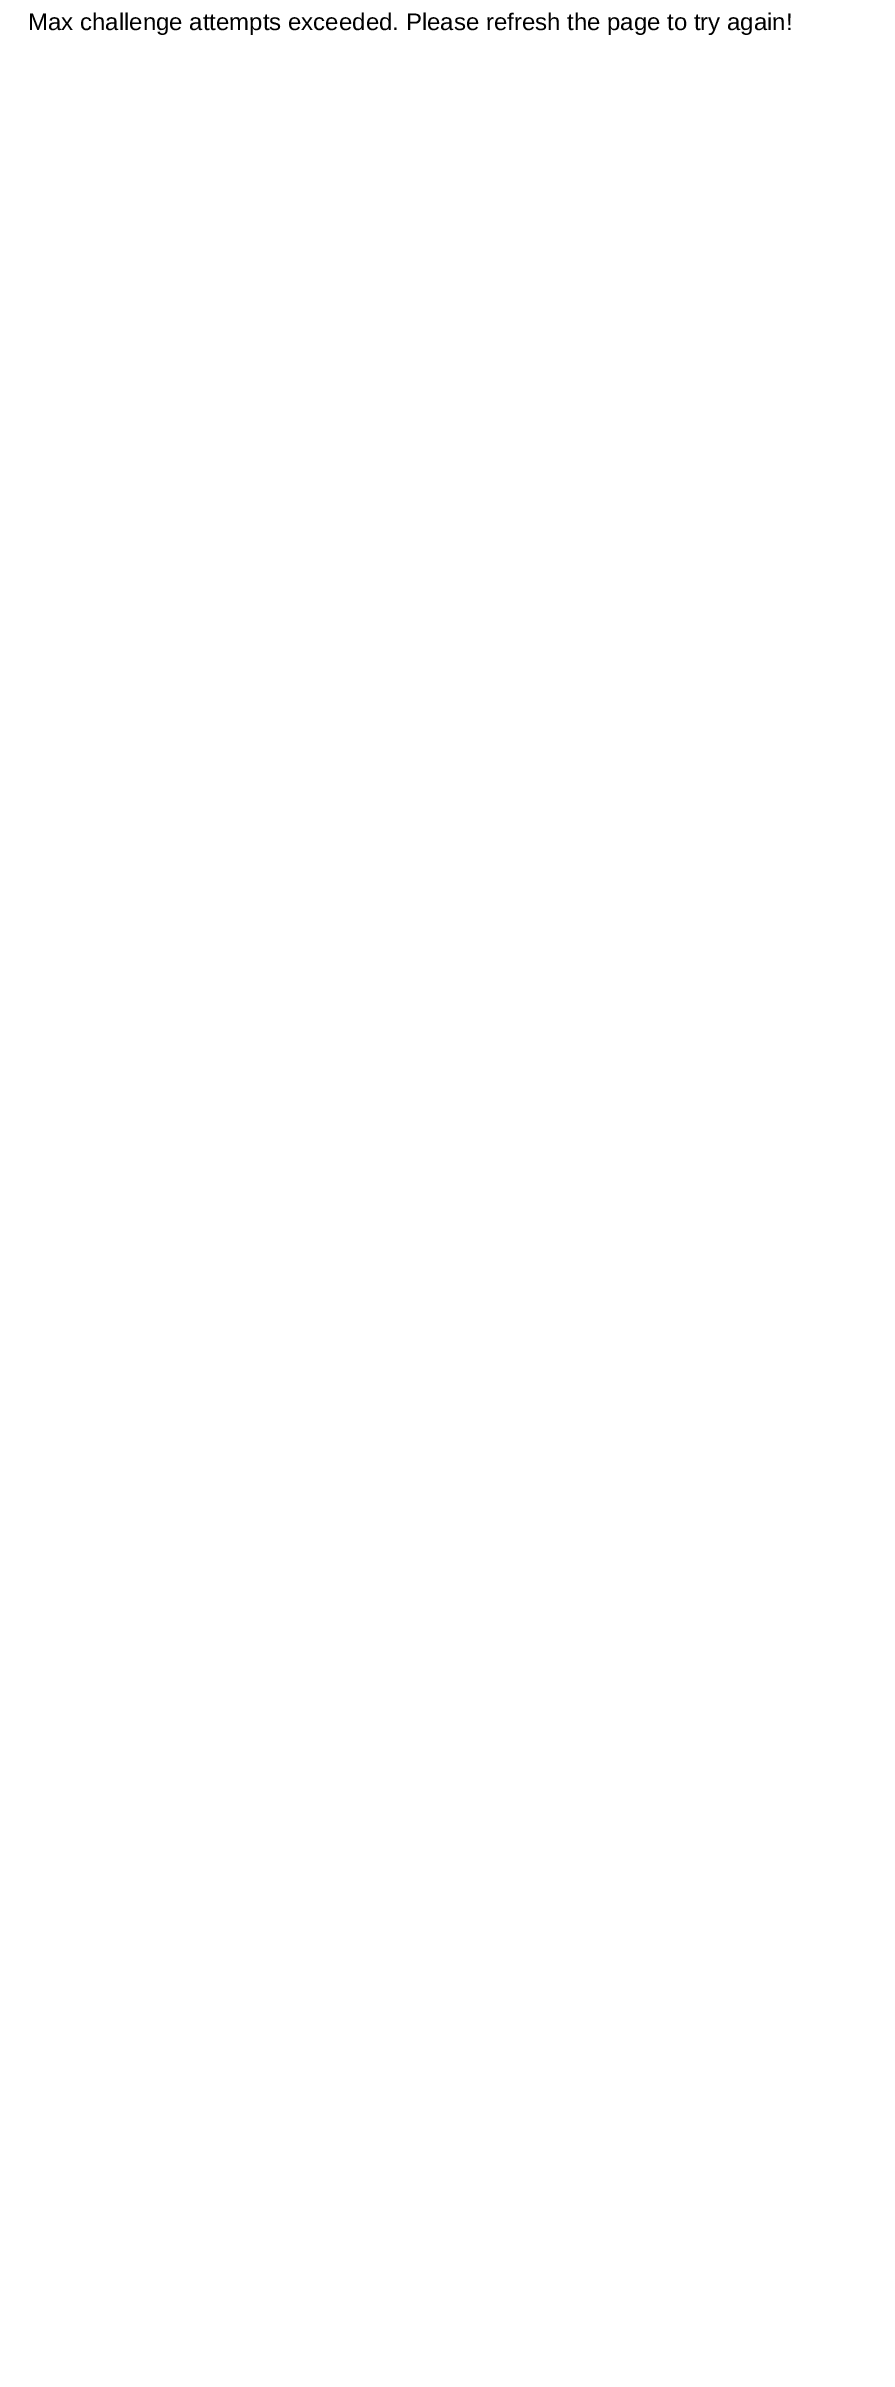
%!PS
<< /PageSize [895 2387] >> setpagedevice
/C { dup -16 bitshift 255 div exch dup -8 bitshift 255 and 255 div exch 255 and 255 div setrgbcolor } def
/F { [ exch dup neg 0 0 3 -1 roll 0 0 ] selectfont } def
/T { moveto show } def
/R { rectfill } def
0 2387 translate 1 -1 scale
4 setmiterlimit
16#FFFFFF C
0 0 895 2387 R
/LiberationSans-Regular 24 F
16#000000 C
(Max challenge attempts exceeded. Please refresh the page to try again!) 28 30 T
showpage
